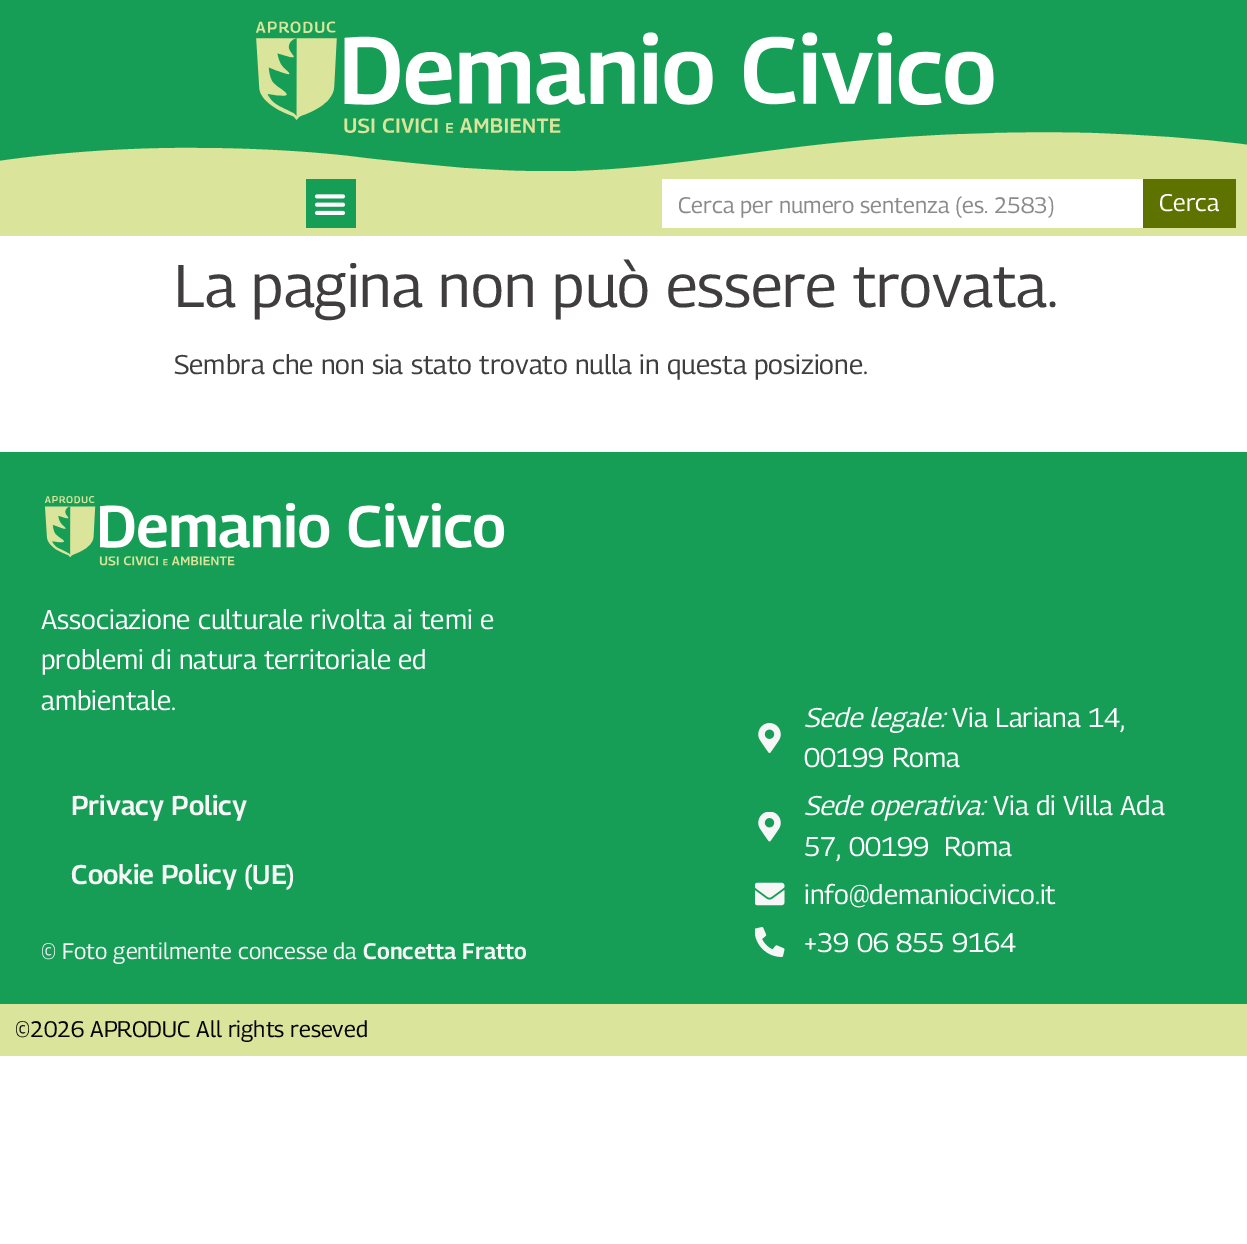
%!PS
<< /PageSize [1247 1244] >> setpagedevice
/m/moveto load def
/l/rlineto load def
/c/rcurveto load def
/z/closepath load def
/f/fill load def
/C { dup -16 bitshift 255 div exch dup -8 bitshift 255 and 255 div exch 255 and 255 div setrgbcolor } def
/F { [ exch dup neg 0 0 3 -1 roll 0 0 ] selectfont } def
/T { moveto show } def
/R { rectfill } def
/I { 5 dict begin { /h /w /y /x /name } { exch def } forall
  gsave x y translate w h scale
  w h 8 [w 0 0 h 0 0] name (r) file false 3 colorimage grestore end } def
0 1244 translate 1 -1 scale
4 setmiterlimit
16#FFFFFF C
0 0 1247 1244 R
16#169D56 C
0 0 1247 171 R
16#DAE49B C
526 171 m 107 4 213 -19 319 -29 c 82 -8 165 -11 247 -9 c 53 2 105 5 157 12 c 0 29 l -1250 0 l 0 -13 l 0 0 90 -14 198 -13 c 49 0 116 3 168 10 c 26 3 65 7 99 10 c 34 2 50 3 62 3 c z f
(1.rgb) 255 21 739 113 I
0 171 1247 65 R
16#169D56 C
306 179 50 49 R
(2.rgb) 314 194 32 21 I
16#FFFFFF C
662 179 481 49 R
/Georama-Regular 22.5 F
16#8C8B8B C
(Cerca per numero sentenza \(es. 2583\)) 678 213 T
16#5E7200 C
1143 179 93 49 R
/Georama-Regular 24 F
16#FFFFFF C
(Cerca) 1159 211 T
/Georama-Regular 60 F
16#3F3D3D C
(La pagina non può essere trovata.) 174 307 T
/Georama-Regular 27 F
(Sembra che non sia stato trovato nulla in questa posizione.) 174 374 T
16#169D56 C
0 452 1247 552 R
(3.rgb) 44 496 461 70 I
16#FFFFFF C
(Associazione culturale rivolta ai temi e) 41 629 T
(problemi di natura territoriale ed) 41 669 T
(ambientale.) 41 710 T
/Georama-SemiBold 27 F
16#F6F6F6 C
(Privacy Policy) 71 815 T
(Cookie Policy \(UE\)) 71 884 T
/Georama-Regular 22.5 F
(© Foto gentilmente concesse da) 41 959 T
/Georama-SemiBold 22.5 F
(Concetta Fratto) 363 959 T
(4.rgb) 758 723 23 30 I
/Georama-Italic 27 F
16#FFFFFF C
(Sede legale:) 804 727 T
/Georama-Regular 27 F
(Via Lariana 14,) 952 727 T
(00199 Roma) 804 767 T
(5.rgb) 758 812 23 30 I
/Georama-Italic 27 F
(Sede operativa:) 804 815 T
/Georama-Regular 27 F
(Via di Villa Ada) 993 815 T
(57, 00199  Roma) 804 856 T
(6.rgb) 755 882 30 24 I
(info@demaniocivico.it) 804 904 T
(7.rgb) 755 927 30 30 I
(+39 06 855 9164) 804 952 T
16#DAE49B C
0 1004 1247 52 R
/Georama-Regular 22.5 F
16#050504 C
(©2026 APRODUC All rights reseved) 15 1037 T
showpage
